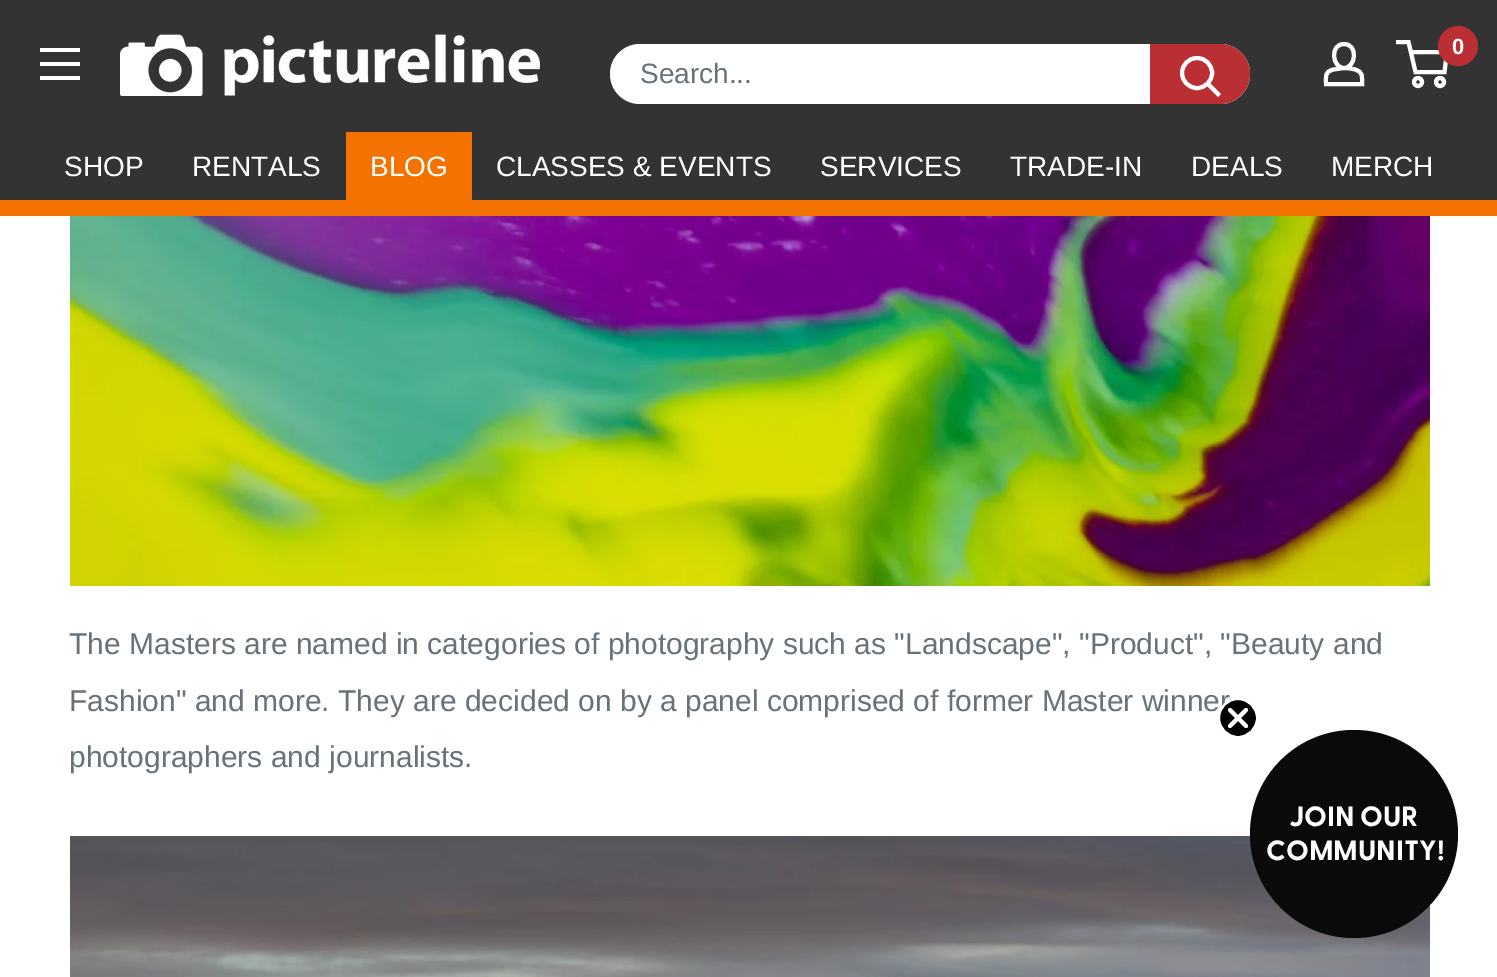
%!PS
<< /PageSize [1497 977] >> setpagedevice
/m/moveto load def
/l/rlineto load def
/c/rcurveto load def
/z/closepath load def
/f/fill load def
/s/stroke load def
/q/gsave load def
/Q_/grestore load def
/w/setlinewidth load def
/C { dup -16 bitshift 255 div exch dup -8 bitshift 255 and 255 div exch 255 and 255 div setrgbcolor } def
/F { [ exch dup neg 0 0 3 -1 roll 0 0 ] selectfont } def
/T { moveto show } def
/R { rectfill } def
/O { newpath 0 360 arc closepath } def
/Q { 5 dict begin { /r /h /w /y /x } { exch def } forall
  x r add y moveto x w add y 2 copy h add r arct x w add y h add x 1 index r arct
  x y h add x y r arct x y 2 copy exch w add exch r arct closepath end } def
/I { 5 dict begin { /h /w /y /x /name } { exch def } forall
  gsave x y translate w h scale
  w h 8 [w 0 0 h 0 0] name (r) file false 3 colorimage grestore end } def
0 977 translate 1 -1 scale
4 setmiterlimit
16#FFFFFF C
0 0 1497 977 R
16#333333 C
0 0 1497 200 R
16#FFFFFF C
40 76 m 40 0 l 0 4 l -40 0 l z 40 48 m 40 0 l 0 4 l -40 0 l z 40 62 m 40 0 l 0 4 l -40 0 l z eofill
(1.rgb) 120 34 420 62 I
610 44 640 60 30 Q f
/LiberationSans-Regular 28 F
16#677279 C
(Search...) 640 83 T
16#BA2F34 C
1150 44 m 70 0 l 16.5 0 30 13.5 30 30 c 0 16.5 -13.5 30 -30 30 c -70 0 l z f
16#FFFFFF C
4 w
2 setlinecap
1218 94 m -10 -10 l s
0 setlinecap
1197 73 15 O s
1344 68 m 4 0 7.5 .5 11 1.5 c 8.5 2.5 7 7 7 14.5 c -36 0 l 0 -8 -1.5 -12.5 7.5 -14.5 c z 1344 68 m -12 0 -14.5 -24 0 -24 c 14.5 0 12 24 0 24 c z s
1418 82 4 O s
1440 82 4 O s
1410.5 52 m 36.5 0 l -2.5 20 l -29 0 l -7 -30 l -12.5 0 l s
16#BA2F34 C
1458 46 20 O f
/LiberationSans-Bold 22 F
16#FFFFFF C
(0) 1452 54 T
/LiberationSans-Regular 28 F
(SHOP) 64 176 T
(RENTALS) 192 176 T
16#F37200 C
346 132 126 68 R
16#FFFFFF C
(BLOG) 370 176 T
(CLASSES & EVENTS) 496 176 T
(SERVICES) 820 176 T
(TRADE-IN) 1010 176 T
(DEALS) 1191 176 T
(MERCH) 1331 176 T
16#F37200 C
0 200 1497 16 R
(2.rgb) 70 216 1360 370 I
/LiberationSans-Regular 30 F
16#677279 C
(The Masters are named in categories of photography such as "Landscape", "Product", "Beauty and) 69 654 T
(Fashion" and more. They are decided on by a panel comprised of former Master winner) 69 711 T
(photographers and journalists.) 69 767 T
(3.rgb) 70 836 1360 141 I
16#0A0A0A C
1354 834 104 O f
16#000000 C
1238 718 19 O q f Q_
16#FFFFFF C
2 w
s
4 w
1 setlinecap
1 setlinejoin
1230 710 m 16 16 l 1230 726 m 16 -16 l z s
/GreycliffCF-Bold 28 F
(JOIN OUR) 1289 826 T
(COMMUNITY!) 1266 860 T
showpage
